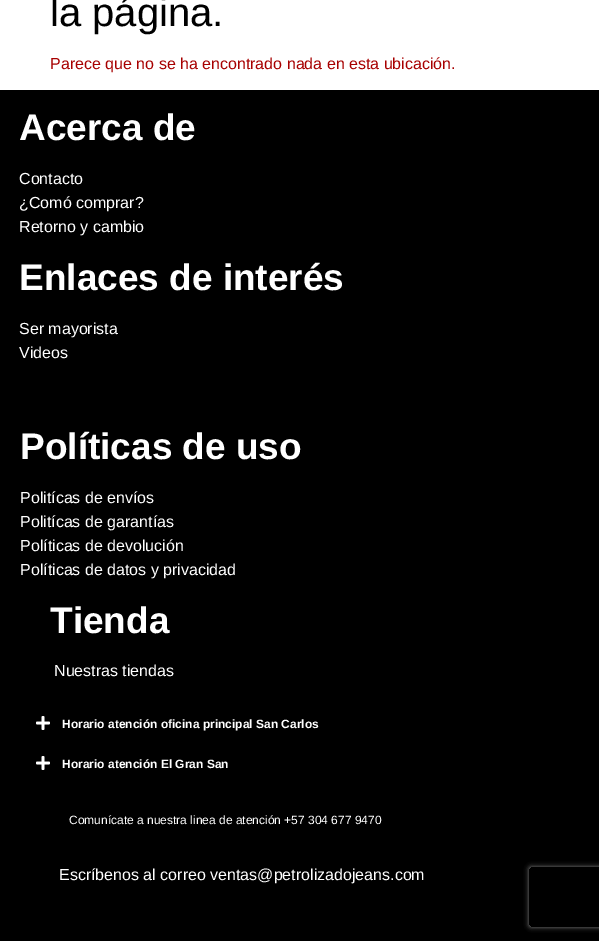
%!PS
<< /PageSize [599 941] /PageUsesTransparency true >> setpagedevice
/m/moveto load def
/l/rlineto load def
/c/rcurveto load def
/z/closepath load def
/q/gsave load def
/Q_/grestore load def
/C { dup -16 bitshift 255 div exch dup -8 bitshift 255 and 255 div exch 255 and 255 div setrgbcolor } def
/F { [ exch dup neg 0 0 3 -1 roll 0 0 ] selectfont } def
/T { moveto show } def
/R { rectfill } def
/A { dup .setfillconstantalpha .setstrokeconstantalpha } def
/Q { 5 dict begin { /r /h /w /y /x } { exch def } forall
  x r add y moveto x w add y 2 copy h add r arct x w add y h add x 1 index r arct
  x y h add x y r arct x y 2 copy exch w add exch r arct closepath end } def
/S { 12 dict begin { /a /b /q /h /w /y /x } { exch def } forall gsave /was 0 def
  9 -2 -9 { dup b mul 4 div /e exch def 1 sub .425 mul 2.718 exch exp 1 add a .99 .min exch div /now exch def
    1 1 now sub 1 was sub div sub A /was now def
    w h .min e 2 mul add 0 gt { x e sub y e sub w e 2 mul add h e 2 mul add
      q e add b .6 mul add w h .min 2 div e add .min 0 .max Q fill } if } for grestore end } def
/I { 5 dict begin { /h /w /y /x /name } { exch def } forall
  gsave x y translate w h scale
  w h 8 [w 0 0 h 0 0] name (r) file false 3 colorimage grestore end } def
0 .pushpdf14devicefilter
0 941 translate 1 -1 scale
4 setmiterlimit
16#FFFFFF C
0 0 599 941 R
/LiberationSans-Regular 40 F
16#000000 C
(la página.) 50 26 T
/LiberationSans-Regular 16 F
16#A70000 C
(Parece que no se ha encontrado nada en esta ubicación.) 50 69 T
16#000000 C
0 90 599 851 R
/LiberationSans-Bold 37 F
16#FFFFFF C
(Acerca de) 19 140 T
/LiberationSans-Regular 16 F
(Contacto) 19 184 T
(¿Comó comprar?) 19 208 T
(Retorno y cambio) 19 232 T
/LiberationSans-Bold 37 F
(Enlaces de interés) 19 290 T
/LiberationSans-Regular 16 F
(Ser mayorista) 19 334 T
(Videos) 19 358 T
/LiberationSans-Bold 37 F
(Políticas de uso) 20 459 T
/LiberationSans-Regular 16 F
(Politícas de envíos) 20 503 T
(Politícas de garantías) 20 527 T
(Políticas de devolución) 20 551 T
(Políticas de datos y privacidad) 20 575 T
/LiberationSans-Bold 37 F
(Tienda) 50 633 T
/LiberationSans-Regular 16 F
(Nuestras tiendas) 54 676 T
(1.rgb) 36 716 14 14 I
/LiberationSans-Bold 12 F
(Horario atención oficina principal San Carlos) 62 728 T
(1.rgb) 36 756 14 14 I
(Horario atención El Gran San) 62 768 T
/LiberationSans-Regular 12 F
(Comunícate a nuestra linea de atención +57 304 677 9470) 69 824 T
/LiberationSans-Regular 16 F
(Escríbenos al correo ventas@petrolizadojeans.com) 59 880 T
q
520 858 m 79 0 l 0 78 l -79 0 l z 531 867 m 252 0 l 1 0 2 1 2 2 c 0 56 l 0 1 -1 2 -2 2 c -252 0 l -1 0 -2 -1 -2 -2 c 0 -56 l 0 -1 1 -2 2 -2 c z eoclip newpath
16#808080 C
529 867 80 60 2 2.5 1 S
Q_
.poppdf14devicefilter showpage
